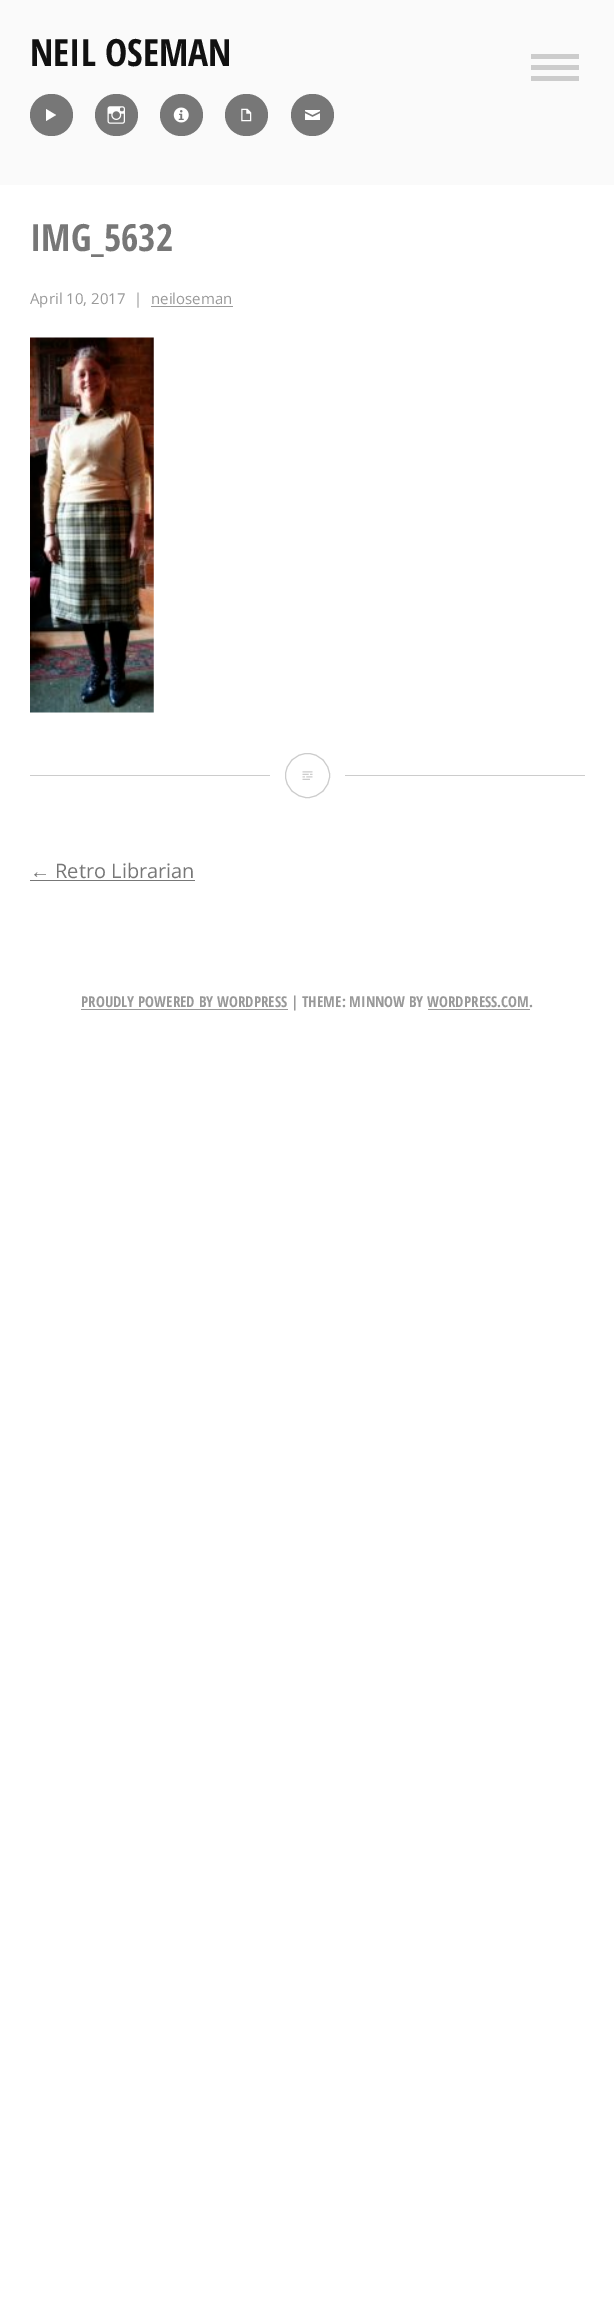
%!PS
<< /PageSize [614 2311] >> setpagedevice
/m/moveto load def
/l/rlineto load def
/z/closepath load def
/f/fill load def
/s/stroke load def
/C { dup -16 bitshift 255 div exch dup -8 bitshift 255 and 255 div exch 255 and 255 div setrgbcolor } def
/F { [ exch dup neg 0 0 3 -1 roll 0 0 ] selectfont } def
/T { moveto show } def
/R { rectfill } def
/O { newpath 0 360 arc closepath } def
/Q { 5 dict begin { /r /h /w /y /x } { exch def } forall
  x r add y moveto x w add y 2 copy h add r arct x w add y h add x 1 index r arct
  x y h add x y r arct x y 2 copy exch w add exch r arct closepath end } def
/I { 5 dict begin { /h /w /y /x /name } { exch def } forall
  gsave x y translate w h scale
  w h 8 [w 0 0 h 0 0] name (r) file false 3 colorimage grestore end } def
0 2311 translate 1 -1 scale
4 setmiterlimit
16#FFFFFF C
0 0 614 2311 R
16#FAFAFA C
0 0 614 185 R
/OpenSansCondensed-Bold 37.5 F
16#111111 C
(NEIL OSEMAN) 30 66 T
16#CCCCCC C
531 54 48 5 R
531 65 48 5 R
531 76 48 5 R
16#777777 C
30 94 43 42 21 Q f
16#FFFFFF C
46 109 m 10 6 l -10 6 l z f
16#777777 C
95 94 43 42 21 Q f
(1.rgb) 107 106 18 18 I
160 94 43 42 21 Q f
(2.rgb) 173 107 16 16 I
225 94 43 42 21 Q f
(3.rgb) 241 108 11 14 I
291 94 43 42 21 Q f
(4.rgb) 305 110 15 10 I
16#CCCCCC C
30 775 555 1 R
16#777777 C
(IMG_5632) 30 251 T
/OpenSans-Regular 15 F
16#999999 C
(April 10, 2017) 30 304 T
(|) 134 304 T
(neiloseman) 151 304 T
151 306 82 1 R
(5.rgb) 30 337 124 376 I
16#FFFFFF C
270 775 75 1 R
16#CCCCCC C
307.5 775.5 22 O s
(6.rgb) 302 771 11 9 I
/LiberationSans-Regular 20 F
16#777777 C
(←) 30 878 T
30 880 165 1 R
/OpenSans-Regular 20 F
(Retro Librarian) 55 878 T
16#999999 C
81 1009 207 1 R
/OpenSansCondensed-Bold 15 F
(PROUDLY POWERED BY WORDPRESS | THEME: MINNOW BY WORDPRESS.COM.) 81 1007 T
428 1009 102 1 R
showpage
